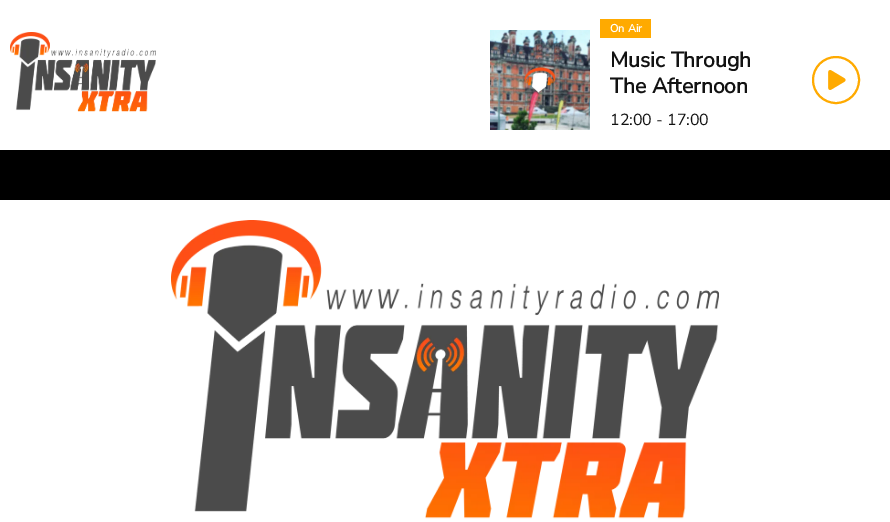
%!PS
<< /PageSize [890 522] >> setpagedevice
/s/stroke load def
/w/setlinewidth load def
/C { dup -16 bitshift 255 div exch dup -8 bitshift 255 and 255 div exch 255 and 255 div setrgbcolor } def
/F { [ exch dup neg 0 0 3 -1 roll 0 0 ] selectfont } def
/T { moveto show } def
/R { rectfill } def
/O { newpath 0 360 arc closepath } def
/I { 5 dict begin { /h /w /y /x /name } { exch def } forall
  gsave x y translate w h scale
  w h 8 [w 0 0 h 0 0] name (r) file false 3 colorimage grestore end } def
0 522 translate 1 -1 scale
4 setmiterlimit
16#FFFFFF C
0 0 890 522 R
(1.rgb) 10 32 146 80 I
(2.rgb) 490 30 100 100 I
16#FFAA00 C
600 19 51 19 R
/NunitoSans-Bold 11 F
16#FFFFFF C
(On Air) 610 32 T
/NunitoSans-Bold 21.25 F
16#121212 C
(Music Through) 610 67 T
(The Afternoon) 610 93 T
/NunitoSans-ExtraLight 16 F
(12:00 - 17:00) 610 125 T
16#FFAA00 C
2 w
836 80 23 O s
(3.rgb) 828 70 18 20 I
16#000000 C
0 150 890 50 R
(4.rgb) 171 220 548 299 I
showpage
